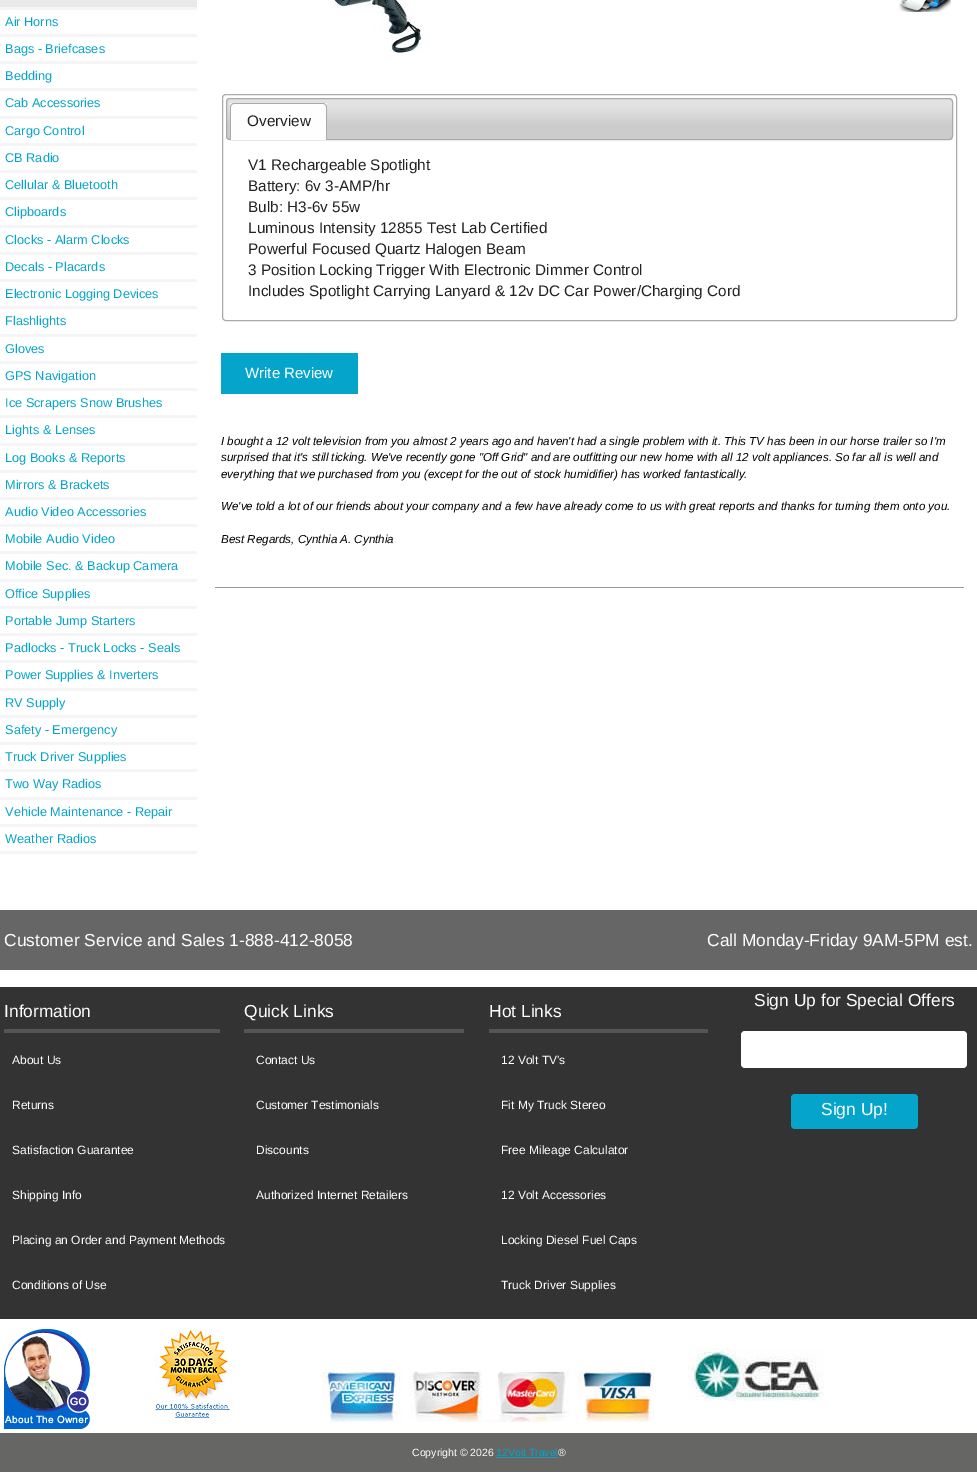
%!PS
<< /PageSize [977 1472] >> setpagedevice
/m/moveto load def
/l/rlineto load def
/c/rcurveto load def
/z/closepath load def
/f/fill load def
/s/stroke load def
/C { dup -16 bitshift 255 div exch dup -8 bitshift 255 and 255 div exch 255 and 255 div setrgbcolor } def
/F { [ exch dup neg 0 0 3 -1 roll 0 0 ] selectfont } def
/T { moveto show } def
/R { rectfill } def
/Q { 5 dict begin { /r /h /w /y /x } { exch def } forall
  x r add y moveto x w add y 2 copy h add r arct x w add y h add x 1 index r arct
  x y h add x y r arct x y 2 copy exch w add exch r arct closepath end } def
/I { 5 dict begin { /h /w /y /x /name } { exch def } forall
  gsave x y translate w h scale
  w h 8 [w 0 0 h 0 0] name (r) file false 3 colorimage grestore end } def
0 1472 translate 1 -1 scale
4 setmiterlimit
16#FFFFFF C
0 0 977 1472 R
16#E9E9E9 C
0 0 197 7 R
16#F5F5F5 C
0 7 197 3 R
0 34 197 3 R
/LiberationSans-Regular 12.75 F
16#05A5CB C
(Air Horns) 5 26 T
16#F5F5F5 C
0 61 197 3 R
16#05A5CB C
(Bags - Briefcases) 5 53 T
16#F5F5F5 C
0 88 197 3 R
16#05A5CB C
(Bedding) 5 80 T
16#F5F5F5 C
0 116 197 3 R
16#05A5CB C
(Cab Accessories) 5 107 T
16#F5F5F5 C
0 143 197 3 R
16#05A5CB C
(Cargo Control) 5 135 T
16#F5F5F5 C
0 170 197 3 R
16#05A5CB C
(CB Radio) 5 162 T
16#F5F5F5 C
0 197 197 3 R
16#05A5CB C
(Cellular & Bluetooth) 5 189 T
16#F5F5F5 C
0 225 197 3 R
16#05A5CB C
(Clipboards) 5 216 T
16#F5F5F5 C
0 252 197 3 R
16#05A5CB C
(Clocks - Alarm Clocks) 5 244 T
16#F5F5F5 C
0 279 197 3 R
16#05A5CB C
(Decals - Placards) 5 271 T
16#F5F5F5 C
0 306 197 3 R
16#05A5CB C
(Electronic Logging Devices) 5 298 T
16#F5F5F5 C
0 334 197 3 R
16#05A5CB C
(Flashlights) 5 325 T
16#F5F5F5 C
0 361 197 3 R
16#05A5CB C
(Gloves) 5 353 T
16#F5F5F5 C
0 388 197 3 R
16#05A5CB C
(GPS Navigation) 5 380 T
16#F5F5F5 C
0 415 197 3 R
16#05A5CB C
(Ice Scrapers Snow Brushes) 5 407 T
16#F5F5F5 C
0 443 197 3 R
16#05A5CB C
(Lights & Lenses) 5 434 T
16#F5F5F5 C
0 470 197 3 R
16#05A5CB C
(Log Books & Reports) 5 462 T
16#F5F5F5 C
0 497 197 3 R
16#05A5CB C
(Mirrors & Brackets) 5 489 T
16#F5F5F5 C
0 524 197 3 R
16#05A5CB C
(Audio Video Accessories) 5 516 T
16#F5F5F5 C
0 551 197 3 R
16#05A5CB C
(Mobile Audio Video) 5 543 T
16#F5F5F5 C
0 579 197 3 R
16#05A5CB C
(Mobile Sec. & Backup Camera) 5 570 T
16#F5F5F5 C
0 606 197 3 R
16#05A5CB C
(Office Supplies) 5 598 T
16#F5F5F5 C
0 633 197 3 R
16#05A5CB C
(Portable Jump Starters) 5 625 T
16#F5F5F5 C
0 660 197 3 R
16#05A5CB C
(Padlocks - Truck Locks - Seals) 5 652 T
16#F5F5F5 C
0 688 197 3 R
16#05A5CB C
(Power Supplies & Inverters) 5 679 T
16#F5F5F5 C
0 715 197 3 R
16#05A5CB C
(RV Supply) 5 707 T
16#F5F5F5 C
0 742 197 3 R
16#05A5CB C
(Safety - Emergency) 5 734 T
16#F5F5F5 C
0 769 197 3 R
16#05A5CB C
(Truck Driver Supplies) 5 761 T
16#F5F5F5 C
0 797 197 3 R
16#05A5CB C
(Two Way Radios) 5 788 T
16#F5F5F5 C
0 824 197 3 R
16#05A5CB C
(Vehicle Maintenance - Repair) 5 816 T
16#F5F5F5 C
0 851 197 3 R
16#05A5CB C
(Weather Radios) 5 843 T
(1.rgb) 334 0 88 53 I
(2.rgb) 899 0 52 12 I
16#AAAAAA C
222.5 94.5 734 226 3.5 Q s
(3.rgb) 226 98 727 42 I
226.5 98.5 726 41 3.5 Q s
16#FEFEFE C
230 103 97 37 R
16#AAAAAA C
234 103 m 89 0 l 2 0 4 2 4 4 c 0 33 l -97 0 l 0 -33 l 0 -2 2 -4 4 -4 c z 234 104 m 89 0 l 2 0 3 1 3 3 c 0 33 l -95 0 l 0 -33 l 0 -2 1 -3 3 -3 c z eofill
/LiberationSans-Regular 15.3 F
16#222222 C
(Overview) 247 126 T
(V1 Rechargeable Spotlight) 248 170 T
(Battery: 6v 3-AMP/hr) 248 191 T
(Bulb: H3-6v 55w) 248 212 T
(Luminous Intensity 12855 Test Lab Certified) 248 233 T
(Powerful Focused Quartz Halogen Beam) 248 254 T
(3 Position Locking Trigger With Electronic Dimmer Control) 248 275 T
(Includes Spotlight Carrying Lanyard & 12v DC Car Power/Charging Cord) 248 296 T
16#05A5CB C
221 353 137 41 R
/LiberationSans-Regular 15 F
16#FFFFFF C
(Write Review) 245 378 T
/LiberationSans-Italic 11.6 F
16#000000 C
(I bought a 12 volt television from you almost 2 years ago and haven't had a single problem with it. This TV has been in our horse trailer so I'm) 221 445 T
(surprised that it's still ticking. We've recently gone "Off Grid" and are outfitting our new home with all 12 volt appliances. So far all is well and) 221 461 T
(everything that we purchased from you \(except for the out of stock humidifier\) has worked fantastically.) 221 478 T
(We've told a lot of our friends about your company and a few have already come to us with great reports and thanks for turning them onto you.) 221 510 T
(Best Regards, Cynthia A. Cynthia) 221 543 T
16#9A9A9A C
215 587 749 1 R
16#666666 C
0 910 977 60 R
/LiberationSans-Regular 17.4 F
16#FFFFFF C
(Customer Service and Sales 1-888-412-8058) 4 946 T
(Call Monday-Friday 9AM-5PM est.) 707 946 T
16#333333 C
0 987 977 332 R
16#FFFFFF C
(Information) 4 1017 T
16#575454 C
4 1029 216 4 R
/LiberationSans-Regular 12 F
16#FFFFFF C
(About Us) 12 1064 T
(Returns) 12 1109 T
(Satisfaction Guarantee) 12 1154 T
(Shipping Info) 12 1199 T
(Placing an Order and Payment Methods) 12 1244 T
(Conditions of Use) 12 1289 T
/LiberationSans-Regular 17.4 F
(Quick Links) 244 1017 T
16#575454 C
244 1029 220 4 R
/LiberationSans-Regular 12 F
16#FFFFFF C
(Contact Us) 256 1064 T
(Customer Testimonials) 256 1109 T
(Discounts) 256 1154 T
(Authorized Internet Retailers) 256 1199 T
/LiberationSans-Regular 17.4 F
(Hot Links) 489 1017 T
16#575454 C
489 1029 219 4 R
/LiberationSans-Regular 12 F
16#FFFFFF C
(12 Volt TV's) 501 1064 T
(Fit My Truck Stereo) 501 1109 T
(Free Mileage Calculator) 501 1154 T
(12 Volt Accessories) 501 1199 T
(Locking Diesel Fuel Caps) 501 1244 T
(Truck Driver Supplies) 501 1289 T
/LiberationSans-Regular 17.4 F
(Sign Up for Special Offers) 754 1006 T
741 1031 226 37 4 Q f
16#05A5CB C
791 1094 127 35 4 Q f
16#FFFFFF C
(Sign Up!) 821 1115 T
(4.rgb) 4 1329 86 100 I
(5.rgb) 155 1329 80 91 I
(6.rgb) 322 1369 332 53 I
(7.rgb) 688 1348 136 53 I
16#666665 C
0 1433 977 39 R
/LiberationSans-Regular 10.5 F
16#FFFFFF C
(Copyright © 2026) 412 1456 T
16#05A5CB C
(12Volt Travel) 496 1456 T
496 1457 62 1 R
16#FFFFFF C
(®) 558 1456 T
showpage
